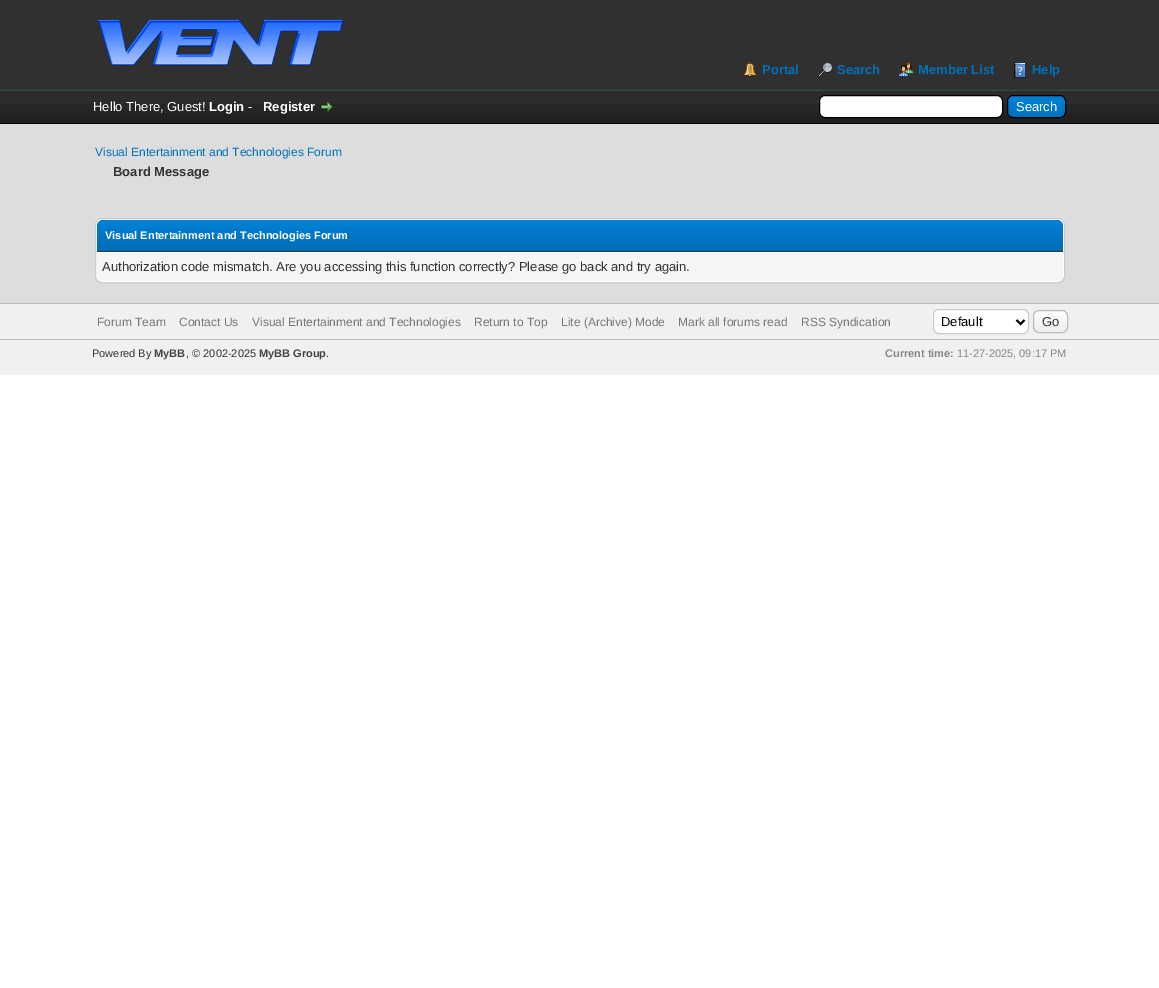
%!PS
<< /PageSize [1159 988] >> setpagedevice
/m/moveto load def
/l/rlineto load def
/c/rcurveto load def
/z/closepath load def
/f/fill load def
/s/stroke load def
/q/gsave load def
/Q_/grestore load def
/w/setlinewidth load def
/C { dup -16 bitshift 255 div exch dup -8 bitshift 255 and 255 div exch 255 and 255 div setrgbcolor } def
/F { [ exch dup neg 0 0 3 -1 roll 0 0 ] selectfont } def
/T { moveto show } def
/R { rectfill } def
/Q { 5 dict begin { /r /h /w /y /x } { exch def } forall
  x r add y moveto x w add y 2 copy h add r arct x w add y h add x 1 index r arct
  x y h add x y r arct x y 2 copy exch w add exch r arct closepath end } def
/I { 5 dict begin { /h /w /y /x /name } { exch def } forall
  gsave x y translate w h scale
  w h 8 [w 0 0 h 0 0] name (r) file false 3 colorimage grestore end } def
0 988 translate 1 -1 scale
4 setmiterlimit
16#FFFFFF C
0 0 1159 988 R
16#F0F0F0 C
0 304 1159 71 R
16#303030 C
0 0 1159 89 R
16#263C30 C
0 89 1159 1 R
(1.rgb) 97 19 247 47 I
(2.rgb) 743 62 14 15 I
/LiberationSans-Bold 13 F
16#0072BC C
(Portal) 762 74 T
(3.rgb) 818 62 15 15 I
(Search) 837 74 T
(4.rgb) 898 62 16 15 I
(Member List) 918 74 T
(5.rgb) 1014 62 12 16 I
(Help) 1032 74 T
(6.rgb) 0 91 1159 32 I
16#444444 C
0 90 1159 1 R
16#000000 C
0 123 1159 1 R
/LiberationSans-Regular 13 F
16#FFFFFF C
(Hello There, Guest!) 93 111 T
/LiberationSans-Bold 13 F
(Login) 209 111 T
/LiberationSans-Regular 13 F
(-) 248 111 T
/LiberationSans-Bold 13 F
(Register) 263 111 T
(7.rgb) 321 102 12 10 I
819.5 95.5 183 22 5.5 Q q f Q_
16#000000 C
s
(8.rgb) 1007 96 59 22 I
1007.5 95.5 58 22 5.5 Q s
/LiberationSans-Regular 13 F
16#FFFFFF C
(Search) 1016 111 T
16#DDDDDD C
0 124 1159 179 R
/LiberationSans-Regular 12 F
16#0072BC C
(Visual Entertainment and Technologies Forum) 95 156 T
/LiberationSans-Bold 13 F
16#333333 C
(Board Message) 113 176 T
16#FFFFFF C
95.5 218.5 969 64 6.5 Q q f Q_
16#CCCCCC C
s
(9.rgb) 97 220 966 31 I
16#263C30 C
97 251 966 1 R
/LiberationSans-Bold 11 F
16#FFFFFF C
(Visual Entertainment and Technologies Forum) 105 239 T
16#F5F5F5 C
97 252 m 966 0 l 0 23 l 0 3.5 -2.5 6 -6 6 c -954 0 l -3.5 0 -6 -2.5 -6 -6 c z f
16#FFFFFF C
97 252 966 1 R
/LiberationSans-Regular 13 F
16#333333 C
(Authorization code mismatch. Are you accessing this function correctly? Please go back and try again.) 102 271 T
16#BBBBBB C
0 303 1159 1 R
0 339 1159 1 R
/LiberationSans-Regular 12 F
16#777777 C
(Forum Team) 97 326 T
(Contact Us) 179 326 T
(Visual Entertainment and Technologies) 252 326 T
(Return to Top) 474 326 T
(Lite \(Archive\) Mode) 561 326 T
(Mark all forums read) 678 326 T
(RSS Syndication) 801 326 T
16#FFFFFF C
933.5 309.5 95 24 5.5 Q q f Q_
16#CCCCCC C
s
16#000000 C
2 w
1016.5 320 m 4 4 l 4 -4 l s
/LiberationSans-Regular 13 F
(Default) 941 326 T
(10.rgb) 1033 311 35 15 I
16#BBBBBB C
1 w
1033.5 310.5 34 22 5.5 Q s
16#333333 C
(Go) 1042 326 T
/LiberationSans-Regular 11 F
(Powered By) 92 357 T
/LiberationSans-Bold 11 F
16#444444 C
(MyBB) 154 357 T
/LiberationSans-Regular 11 F
16#333333 C
(, © 2002-2025) 186 357 T
/LiberationSans-Bold 11 F
16#444444 C
(MyBB Group) 259 357 T
/LiberationSans-Regular 11 F
16#333333 C
(.) 326 357 T
/LiberationSans-Bold 11 F
16#888888 C
(Current time:) 885 357 T
/LiberationSans-Regular 11 F
(11-27-2025, 09:17 PM) 957 357 T
showpage
